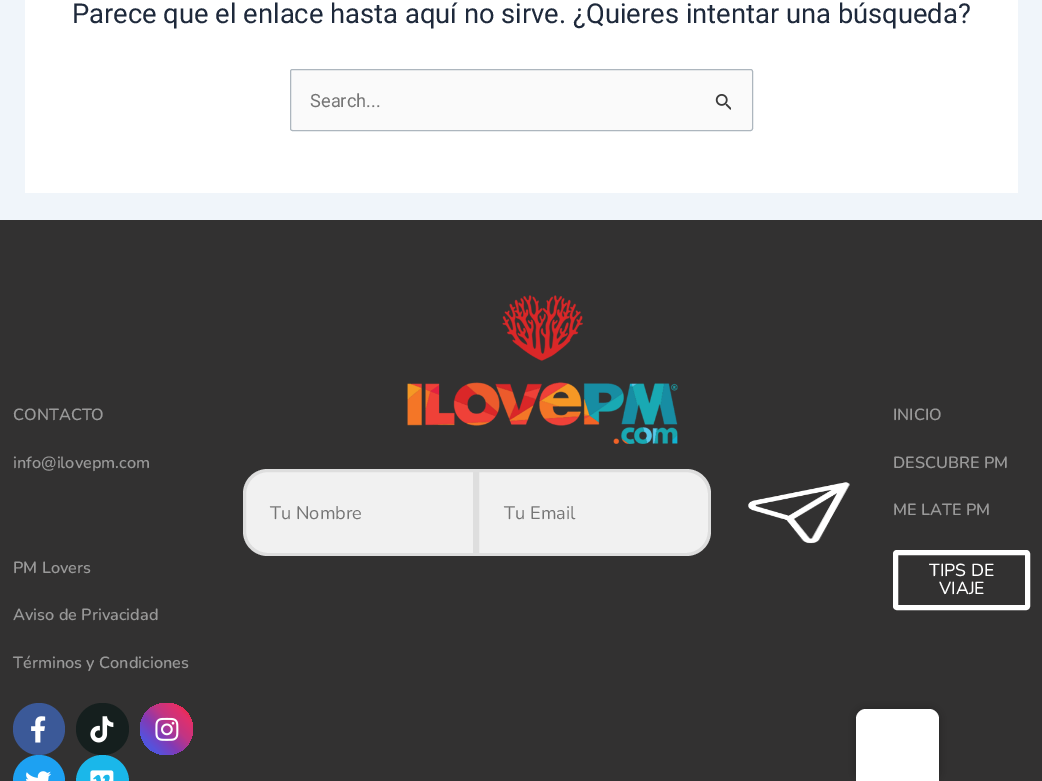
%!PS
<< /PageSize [1042 781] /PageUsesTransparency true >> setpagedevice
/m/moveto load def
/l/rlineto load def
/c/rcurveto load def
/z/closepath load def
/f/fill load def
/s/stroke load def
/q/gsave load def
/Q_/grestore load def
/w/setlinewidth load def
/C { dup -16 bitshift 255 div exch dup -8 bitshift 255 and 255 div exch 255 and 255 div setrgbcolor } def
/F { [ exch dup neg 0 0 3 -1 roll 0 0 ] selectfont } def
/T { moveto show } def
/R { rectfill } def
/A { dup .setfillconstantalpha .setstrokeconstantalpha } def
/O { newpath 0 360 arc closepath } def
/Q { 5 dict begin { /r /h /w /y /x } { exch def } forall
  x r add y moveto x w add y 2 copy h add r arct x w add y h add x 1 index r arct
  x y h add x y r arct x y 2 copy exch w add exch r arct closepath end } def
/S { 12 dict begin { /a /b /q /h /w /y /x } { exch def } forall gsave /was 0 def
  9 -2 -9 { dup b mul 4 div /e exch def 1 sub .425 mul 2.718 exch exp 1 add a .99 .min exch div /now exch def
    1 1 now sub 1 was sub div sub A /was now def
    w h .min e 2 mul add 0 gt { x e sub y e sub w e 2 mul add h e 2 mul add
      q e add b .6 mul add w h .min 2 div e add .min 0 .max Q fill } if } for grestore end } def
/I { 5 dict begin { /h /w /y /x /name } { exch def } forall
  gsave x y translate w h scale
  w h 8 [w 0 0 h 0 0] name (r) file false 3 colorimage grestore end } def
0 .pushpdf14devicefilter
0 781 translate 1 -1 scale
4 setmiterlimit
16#F0F5FA C
0 0 1042 781 R
16#FFFFFF C
25 0 993 193 R
/Roboto-Regular 27.35 F
16#1E293B C
(Parece que el enlace hasta aquí no sirve. ¿Quieres intentar una búsqueda?) 72 23 T
16#FAFAFA C
290.5 69.5 462 61 2 Q q f Q_
16#ADB6BE C
s
/Roboto-Regular 18.25 F
16#757575 C
(Search...) 310 107 T
(1.rgb) 715 94 16 16 I
16#323131 C
0 220 1042 561 R
/Nunito-SemiBold 16.25 F
16#999999 C
(CONTACTO) 13 420 T
(info@ilovepm.com) 13 468 T
(PM Lovers) 13 573 T
(Aviso de Privacidad) 13 620 T
(Términos y Condiciones) 13 668 T
16#3B5998 C
39 729 26 O f
(2.rgb) 31 716 15 27 I
16#151F1E C
76 703 53 52 26 Q f
(3.rgb) 90 716 24 27 I
q 140 703 53 52 26 Q clip newpath
<< /ShadingType 2 /ColorSpace /DeviceRGB /Coords [140 755 193 703] /Extend [true true] /Function << /FunctionType 3 /Domain [0 1] /Functions [<< /FunctionType 2 /Domain [0 1] /C0 [.251 .365 .902] /C1 [.345 .318 .859] /N 1 >> << /FunctionType 2 /Domain [0 1] /C0 [.345 .318 .859] /C1 [.514 .227 .706] /N 1 >> << /FunctionType 2 /Domain [0 1] /C0 [.514 .227 .706] /C1 [.757 .208 .518] /N 1 >> << /FunctionType 2 /Domain [0 1] /C0 [.757 .208 .518] /C1 [.882 .188 .424] /N 1 >> << /FunctionType 2 /Domain [0 1] /C0 [.882 .188 .424] /C1 [.992 .114 .114] /N 1 >>] /Bounds [.2 .4 .6 .8] /Encode [0 1 0 1 0 1 0 1 0 1] >> >> shfill Q_
(4.rgb) 155 717 24 24 I
16#1DA1F2 C
39 781 26 O f
(5.rgb) 26 771 25 10 I
16#1AB7EA C
102.5 781.5 26.5 O f
(6.rgb) 90 770 24 11 I
(7.rgb) 407 295 271 149 I
16#F1F1F1 C
268 469 m 208 0 l 0 87 l -208 0 l -14 0 -25 -11 -25 -25 c 0 -37 l 0 -14 11 -25 25 -25 c z f
0.1 A
16#333333 C
3 w
268 470.5 m 206.5 0 l 0 84 l -206.5 0 l -13 0 -23.5 -10.5 -23.5 -23.5 c 0 -37 l 0 -13 10.5 -23.5 23.5 -23.5 c z s
/Nunito-Regular 18.25 F
1 A
16#757575 C
(Tu Nombre) 270 519 T
16#F1F1F1 C
476 469 m 210 0 l 14 0 25 11 25 25 c 0 37 l 0 14 -11 25 -25 25 c -210 0 l z f
0.1 A
16#333333 C
477.5 470.5 m 208.5 0 l 13 0 23.5 10.5 23.5 23.5 c 0 37 l 0 13 -10.5 23.5 -23.5 23.5 c -208.5 0 l z s
1 A
16#757575 C
(Tu Email) 504 519 T
(8.rgb) 748 482 102 62 I
/Nunito-SemiBold 16.25 F
16#999999 C
(INICIO) 893 420 T
(DESCUBRE PM) 893 468 T
(ME LATE PM) 893 515 T
16#FFFFFF C
5 w
895.5 552.5 132 55 1.5 Q s
/Nunito-Medium 17.5 F
(TIPS DE) 929 576 T
(VIAJE) 939 594 T
16#000000 C
856 709 83 72 10 5 .25 S
16#FFFFFF C
866 709 m 63 0 l 5.5 0 10 4.5 10 10 c 0 62 l -83 0 l 0 -62 l 0 -5.5 4.5 -10 10 -10 c z f
.poppdf14devicefilter showpage
